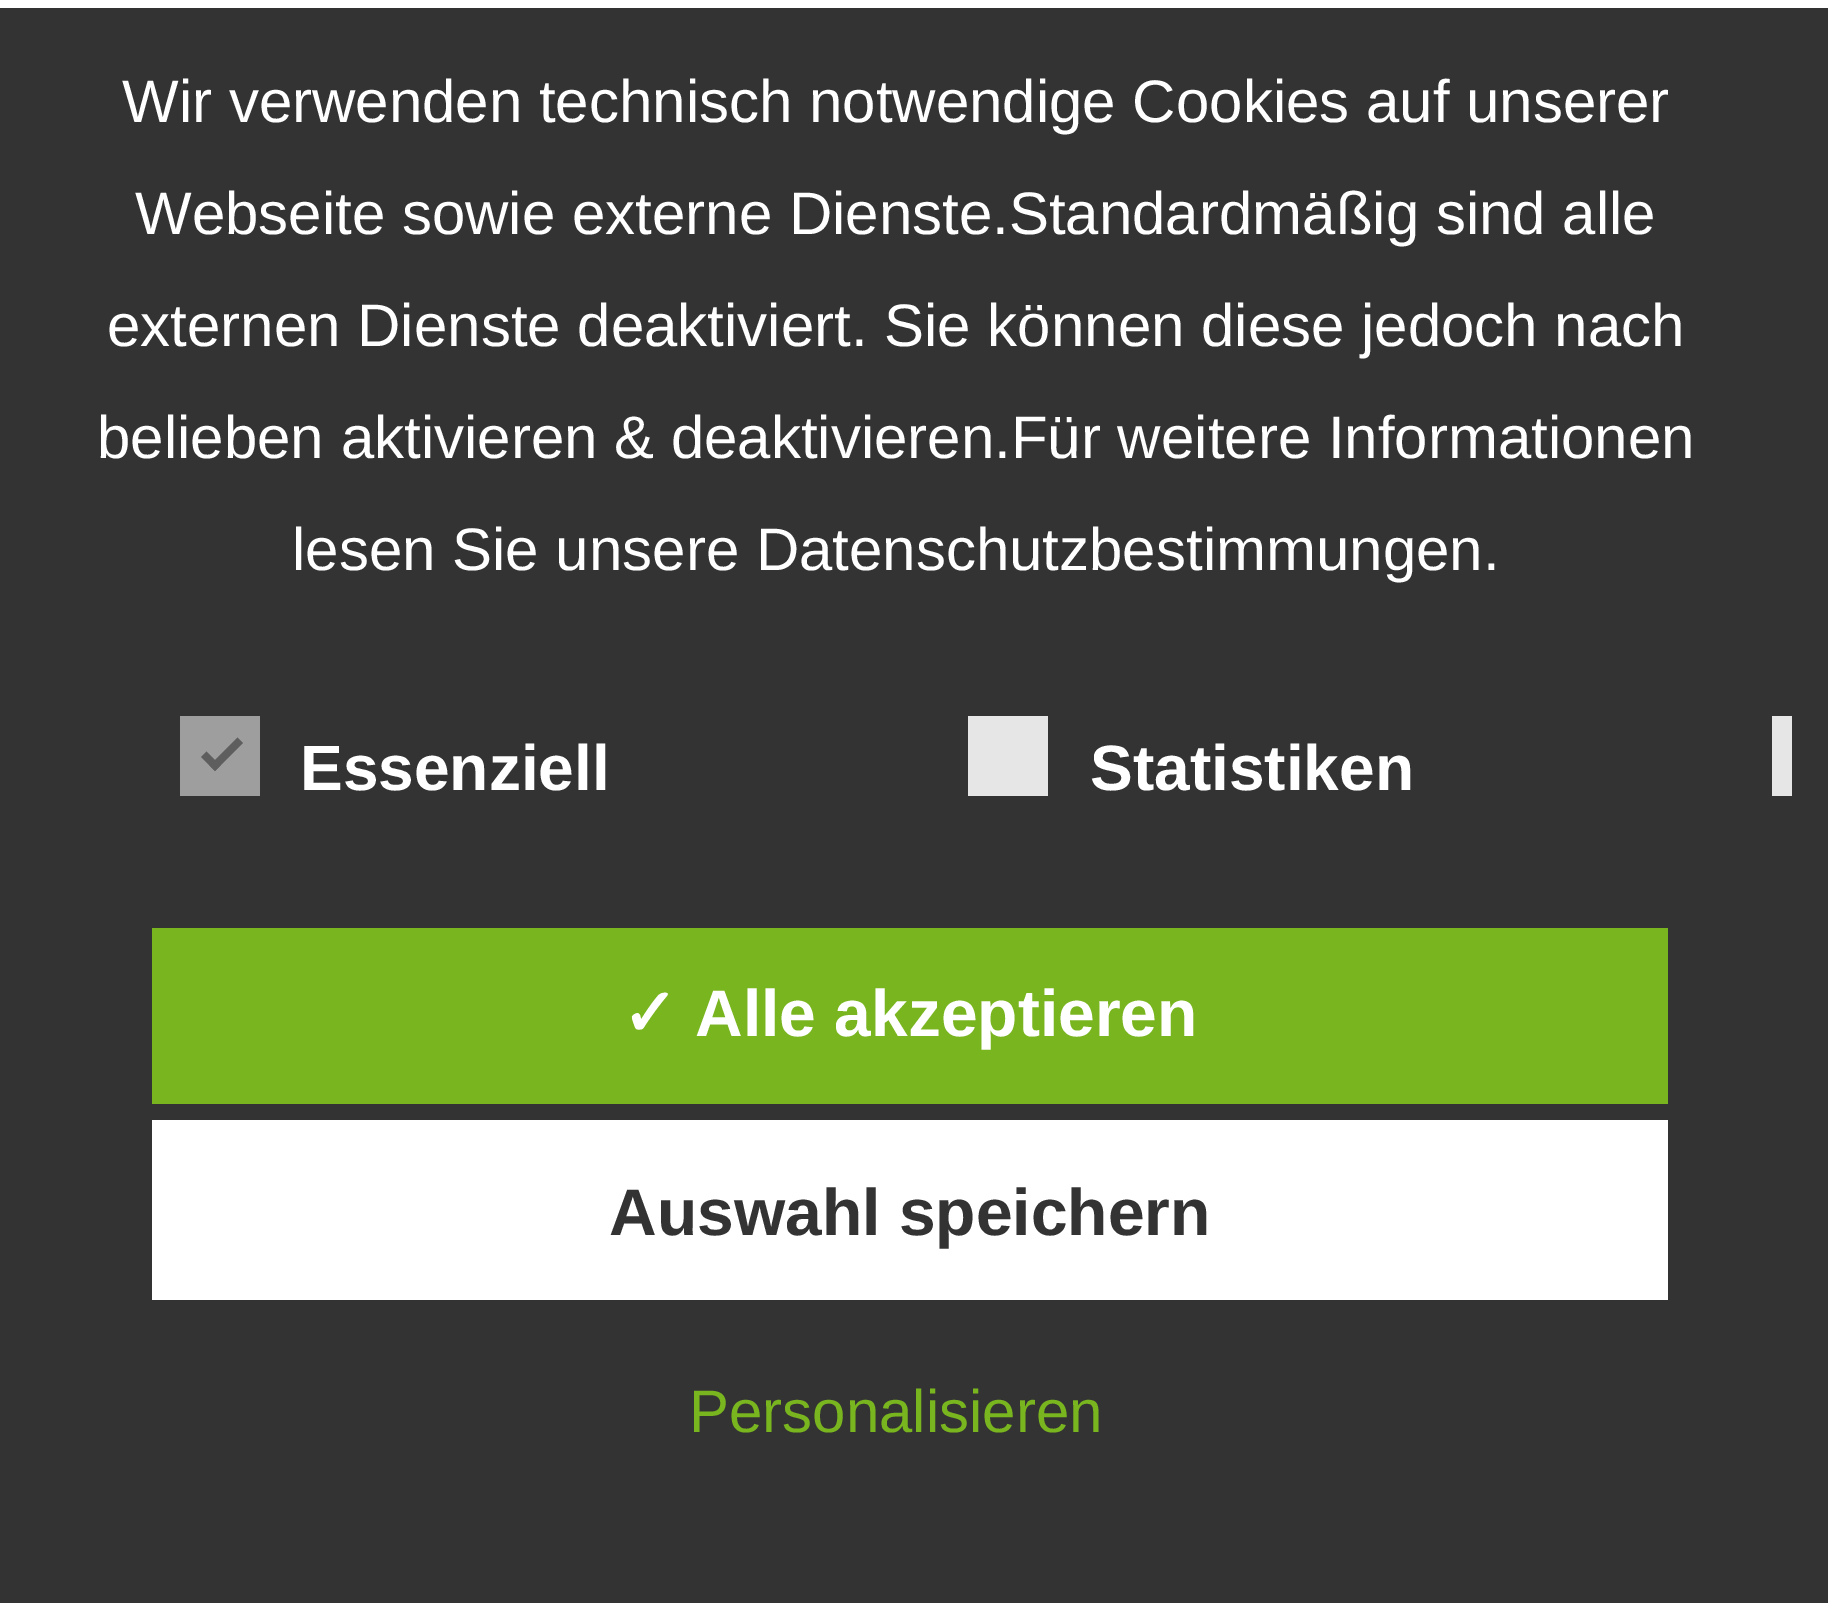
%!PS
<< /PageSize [1828 1603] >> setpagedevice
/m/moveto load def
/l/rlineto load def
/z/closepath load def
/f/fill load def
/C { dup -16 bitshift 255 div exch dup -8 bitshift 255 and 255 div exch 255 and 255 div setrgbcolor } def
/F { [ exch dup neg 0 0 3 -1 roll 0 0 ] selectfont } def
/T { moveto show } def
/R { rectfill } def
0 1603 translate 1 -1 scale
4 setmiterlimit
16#FFFFFF C
0 0 1828 1603 R
16#333333 C
0 8 1828 1595 R
/LiberationSans-Regular 60 F
16#FFFFFF C
(Wir verwenden technisch notwendige Cookies auf unserer) 122 122 T
(Webseite sowie externe Dienste.Standardmäßig sind alle) 135 234 T
(externen Dienste deaktiviert. Sie können diese jedoch nach) 107 346 T
(belieben aktivieren & deaktivieren.Für weitere Informationen) 97 458 T
(lesen Sie unsere Datenschutzbestimmungen.) 292 570 T
16#9E9E9E C
180 716 80 80 R
16#5E5E5E C
237.5 737.5 m 5.5 5.5 l -28 28 l -5.5 -5.5 l z f
206.5 751.5 m 14 14 l -5.5 5.5 l -14 -14 l z f
/LiberationSans-Bold 64 F
16#FFFFFF C
(Essenziell) 300 790 T
16#E6E6E6 C
968 716 80 80 R
16#FFFFFF C
(Statistiken) 1090 790 T
16#E6E6E6 C
1772 716 20 80 R
16#79B51F C
152 928 1516 176 R
/DejaVuSans-Bold 66 F
16#FFFFFF C
(✓) 622 1036 T
/LiberationSans-Bold 66 F
(Alle akzeptieren) 695 1036 T
152 1120 1516 180 R
16#333333 C
(Auswahl speichern) 609 1235 T
/LiberationSans-Regular 60 F
16#79B51F C
(Personalisieren) 689 1432 T
showpage
